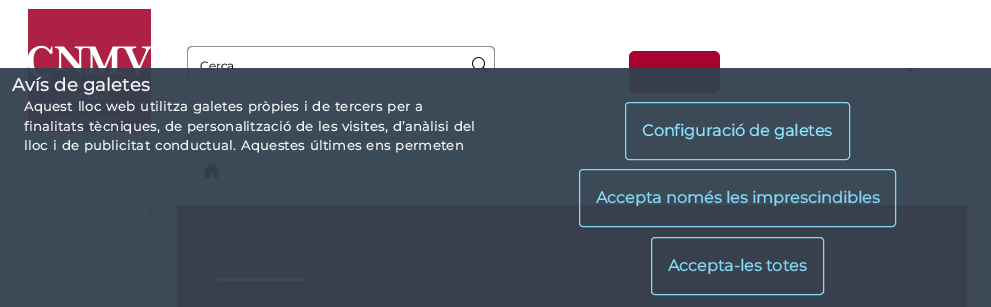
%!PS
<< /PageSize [991 307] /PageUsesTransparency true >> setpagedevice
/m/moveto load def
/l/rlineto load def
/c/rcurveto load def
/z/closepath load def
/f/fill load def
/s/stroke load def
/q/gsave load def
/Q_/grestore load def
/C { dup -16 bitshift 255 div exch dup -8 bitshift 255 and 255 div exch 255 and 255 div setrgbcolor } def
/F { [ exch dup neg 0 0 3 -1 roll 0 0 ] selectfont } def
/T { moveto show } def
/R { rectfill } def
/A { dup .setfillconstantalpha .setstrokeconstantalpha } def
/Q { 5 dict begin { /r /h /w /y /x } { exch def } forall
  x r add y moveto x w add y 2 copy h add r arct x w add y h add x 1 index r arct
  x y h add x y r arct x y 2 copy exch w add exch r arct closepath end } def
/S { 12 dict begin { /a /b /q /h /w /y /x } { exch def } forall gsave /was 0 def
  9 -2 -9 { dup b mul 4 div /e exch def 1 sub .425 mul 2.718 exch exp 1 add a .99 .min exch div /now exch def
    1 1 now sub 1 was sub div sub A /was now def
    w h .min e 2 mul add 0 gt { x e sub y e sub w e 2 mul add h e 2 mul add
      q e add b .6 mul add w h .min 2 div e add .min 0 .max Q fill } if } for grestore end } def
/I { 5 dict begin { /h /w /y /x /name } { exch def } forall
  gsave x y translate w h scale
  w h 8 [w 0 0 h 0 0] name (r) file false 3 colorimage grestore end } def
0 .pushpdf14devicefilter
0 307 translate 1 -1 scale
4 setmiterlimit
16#FFFFFF C
0 0 991 307 R
16#E3E3E3 C
0 149 991 1 R
(1.rgb) 28 9 123 123 I
16#949494 C
466 46 m 24 0 l 3 0 5 2 5 5 c 0 28 l 0 3 -2 5 -5 5 c -24 0 l z 466 47 m 24 0 l 2 0 4 2 4 4 c 0 28 l 0 2 -2 4 -4 4 c -24 0 l z eofill
192 46 m 275 0 l 0 38 l -275 0 l -3 0 -5 -2 -5 -5 c 0 -28 l 0 -3 2 -5 5 -5 c z 192 47 m 275 0 l 0 36 l -275 0 l -2 0 -4 -2 -4 -4 c 0 -28 l 0 -2 2 -4 4 -4 c z eofill
/Montserrat-Regular 12 F
16#000000 C
(Cerca) 200 70 T
(2.rgb) 472 57 16 16 I
16#A70331 C
629 51 91 42 6 Q f
16#AD2144 C
907 68 m 8 0 l -4 4 l z f
q
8 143 m 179 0 l 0 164 l -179 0 l z 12 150 m 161 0 l 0 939 l -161 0 l z eoclip newpath
16#010002 C
17 152 161 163 0 2.5 .2 S
Q_
16#FCFCFC C
24 190 137 1 R
(3.rgb) 152 164 7 11 I
16#E5E5E5 C
24 191 137 1 R
16#FCFCFC C
24 232 137 1 R
(3.rgb) 147 206 7 11 I
16#E5E5E5 C
24 233 137 1 R
16#FCFCFC C
24 298 137 1 R
(3.rgb) 152 272 7 11 I
(4.rgb) 204 163 15 15 I
0.9 A
16#962343 C
177 205 790 102 R
1 A
16#FFFFFF C
217 278 89 3 R
0.95 A
16#32404E C
0 68 991 239 R
/Montserrat-Bold 18 F
1 A
16#F5F6F6 C
12 91 m .25 0 (Avís de galetes) ashow
/Montserrat-Bold 13 F
24 111 m 1 0 32 .4 0 (Aquest lloc web utilitza galetes pròpies i de tercers per a) awidthshow
24 131 m 1 0 32 .4 0 (finalitats tècniques, de personalització de les visites, d’anàlisi del) awidthshow
24 150 m 1 0 32 .4 0 (lloc i de publicitat conductual. Aquestes últimes ens permeten) awidthshow
16#84D8F6 C
625.5 102.5 224 57 3.5 Q s
/Montserrat-Bold 16 F
16#8EE1FE C
(Configuració de galetes) 642 136 T
0.95 A
16#88DFFE C
579.5 169.5 316 57 3.5 Q s
1 A
16#84D8F6 C
(Accepta només les imprescindibles) 596 203 T
16#89D7F6 C
651.5 237.5 172 57 3.5 Q s
16#84D8F6 C
(Accepta-les totes) 668 271 T
.poppdf14devicefilter showpage
